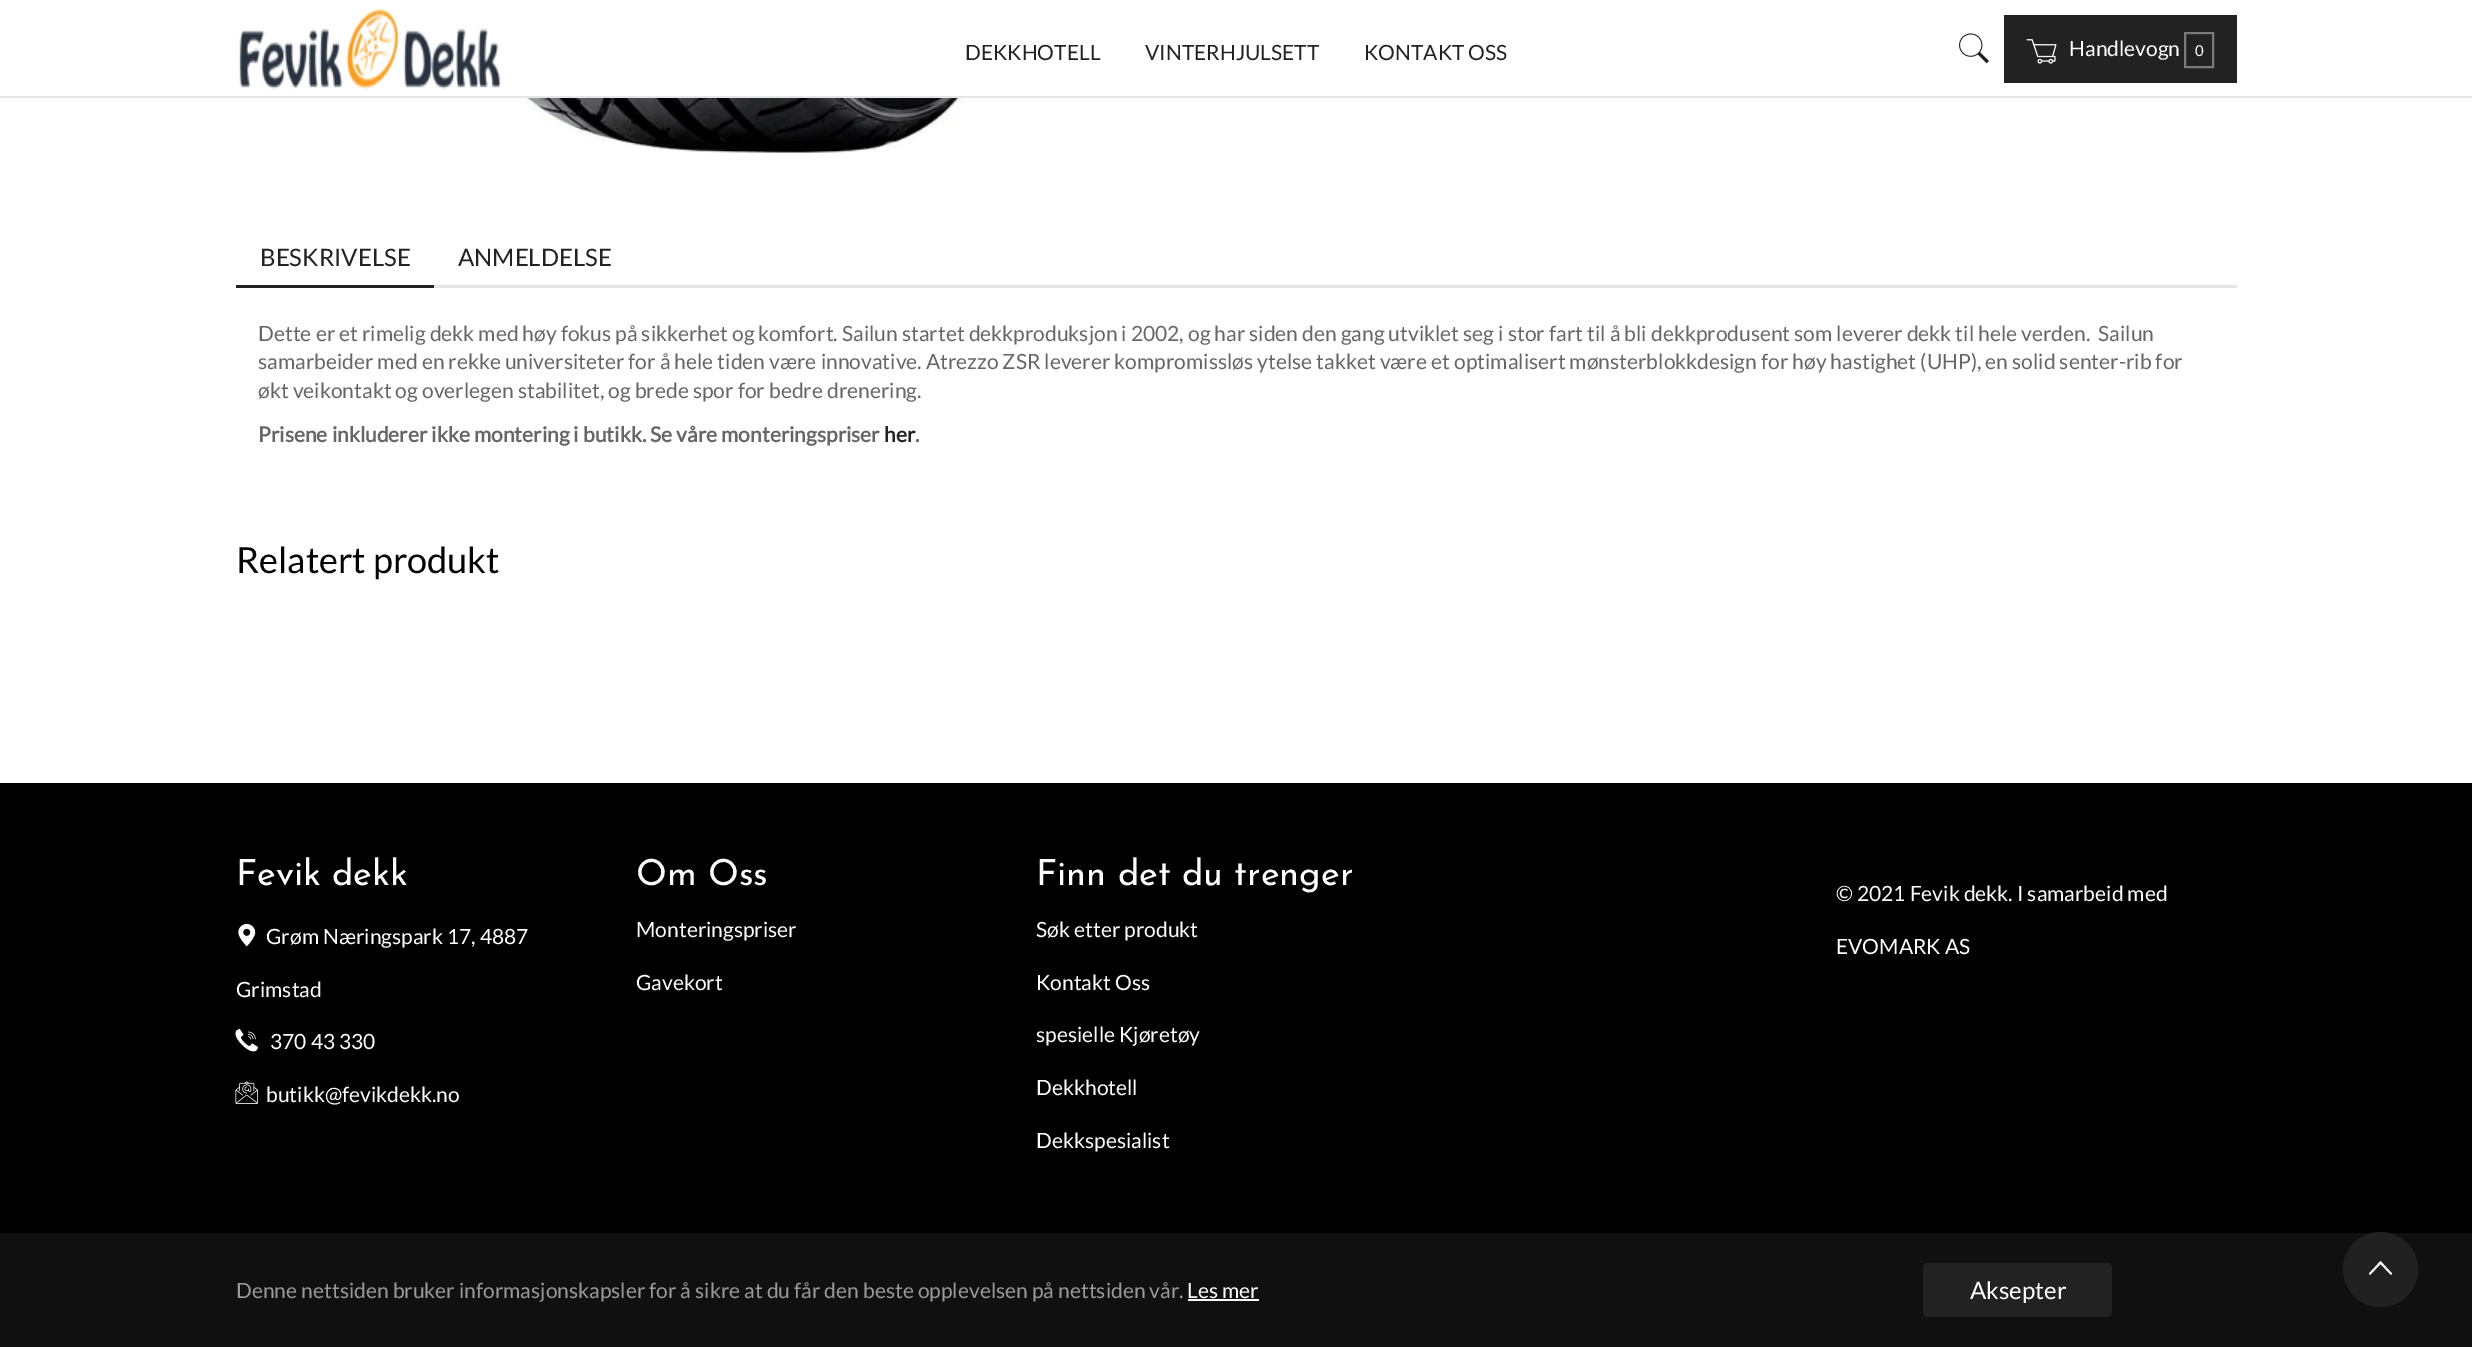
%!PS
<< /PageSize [2472 1347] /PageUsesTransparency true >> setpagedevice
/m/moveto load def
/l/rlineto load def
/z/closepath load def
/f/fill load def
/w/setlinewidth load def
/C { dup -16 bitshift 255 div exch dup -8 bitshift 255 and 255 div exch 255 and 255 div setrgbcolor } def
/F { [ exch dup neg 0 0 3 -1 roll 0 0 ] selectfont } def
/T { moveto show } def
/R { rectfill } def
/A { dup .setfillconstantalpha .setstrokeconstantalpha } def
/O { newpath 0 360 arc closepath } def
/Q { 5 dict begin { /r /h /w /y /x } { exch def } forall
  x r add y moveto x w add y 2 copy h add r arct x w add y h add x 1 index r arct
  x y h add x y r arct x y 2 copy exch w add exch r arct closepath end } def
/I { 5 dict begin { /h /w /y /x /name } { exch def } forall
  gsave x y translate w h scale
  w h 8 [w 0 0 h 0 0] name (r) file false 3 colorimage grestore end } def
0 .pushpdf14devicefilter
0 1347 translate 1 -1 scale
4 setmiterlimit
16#FFFFFF C
0 0 2472 1347 R
16#E6E6E6 C
0 96 2472 2 R
(1.rgb) 239 8 262 82 I
/Lato-Regular 21 F
16#222222 C
(DEKKHOTELL) 965 60 T
(VINTERHJULSETT) 1145 60 T
(KONTAKT OSS) 1364 60 T
(2.rgb) 1959 33 30 31 I
2004 15 233 68 R
(3.rgb) 2026 39 31 25 I
16#FFFFFF C
(Handlevogn) 2069 56 T
16#7A7A7A C
2 w
2185 33 28 34 rectstroke
/Lato-Regular 15 F
16#FFFFFF C
(0) 2195 56 T
(4.rgb) 450 98 571 55 I
16#E6E6E6 C
434 285 1803 3 R
16#222222 C
236 285 198 3 R
/Lato-Regular 24 F
(BESKRIVELSE) 260 266 T
(ANMELDELSE) 458 266 T
/Lato-Regular 21 F
16#666666 C
(Dette er et rimelig dekk med høy fokus på sikkerhet og komfort. Sailun startet dekkproduksjon i 2002, og har siden den gang utviklet seg i stor fart til å bli dekkprodusent som leverer dekk til hele verden.  Sailun) 258 341 T
(samarbeider med en rekke universiteter for å hele tiden være innovative. Atrezzo ZSR leverer kompromissløs ytelse takket være et optimalisert mønsterblokkdesign for høy hastighet \(UHP\), en solid senter-rib for) 258 369 T
(økt veikontakt og overlegen stabilitet, og brede spor for bedre drenering.) 258 398 T
/Lato-Bold 21 F
(Prisene inkluderer ikke montering i butikk. Se våre monteringspriser) 258 442 T
16#222222 C
(her) 884 442 T
16#666666 C
(.) 915 442 T
/Lato-Regular 36 F
16#030303 C
(Relatert produkt) 236 573 T
16#000000 C
0 783 2472 450 R
/JosefinSans-Thin 36 F
16#FFFFFF C
(Fevik dekk) 236 885 T
(5.rgb) 238 923 18 24 I
/Lato-Regular 21 F
(Grøm Næringspark 17, 4887) 266 944 T
(Grimstad) 236 997 T
(6.rgb) 235 1029 23 23 I
(370 43 330) 270 1049 T
(7.rgb) 235 1081 23 23 I
(butikk@fevikdekk.no) 266 1102 T
/JosefinSans-Thin 36 F
(Om Oss) 636 885 T
/Lato-Regular 21 F
(Monteringspriser) 636 937 T
(Gavekort) 636 990 T
/JosefinSans-Thin 36 F
(Finn det du trenger) 1036 885 T
/Lato-Regular 21 F
(Søk etter produkt) 1036 937 T
(Kontakt Oss) 1036 990 T
(spesielle Kjøretøy) 1036 1042 T
(Dekkhotell) 1036 1095 T
(Dekkspesialist) 1036 1148 T
(© 2021 Fevik dekk. I samarbeid med) 1836 901 T
(EVOMARK AS) 1836 954 T
16#101010 C
0 1233 2472 114 R
16#999999 C
(Denne nettsiden bruker informasjonskapsler for å sikre at du får den beste opplevelsen på nettsiden vår.) 236 1298 T
16#FFFFFF C
(Les mer) 1187 1298 T
1188 1299 71 2 R
16#222222 C
1923 1263 189 54 5 Q f
/Lato-Regular 24 F
16#FFFFFF C
(Aksepter) 1970 1299 T
0.97 A
16#222222 C
2380.5 1269.5 37.5 O f
1 A
16#F9F9F9 C
2391 1275 m 1 -1.5 l -11.5 -12.5 l -11.5 12.5 l 1 1.5 l 10.5 -11 l z f
.poppdf14devicefilter showpage
